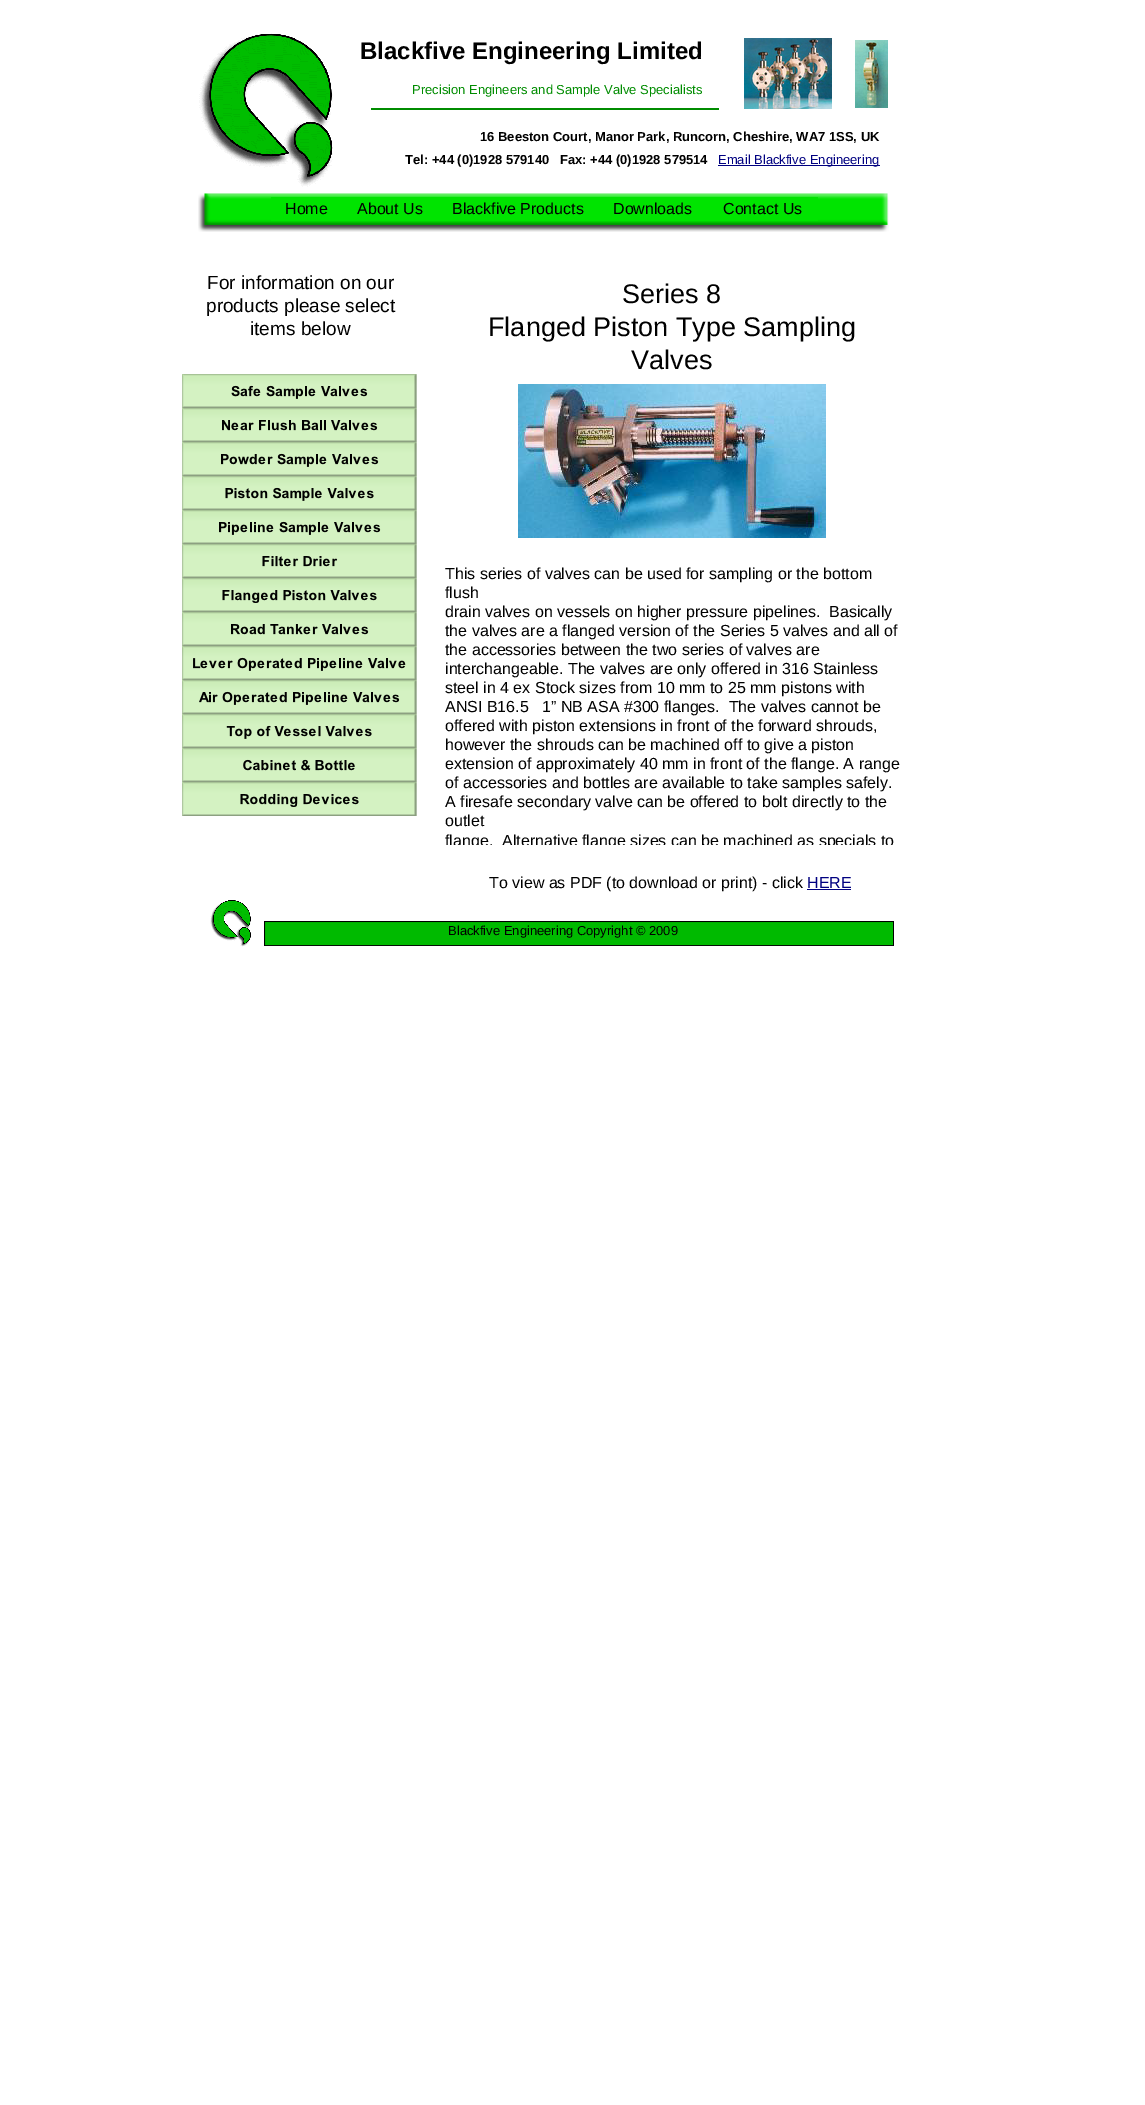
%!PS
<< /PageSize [1145 2105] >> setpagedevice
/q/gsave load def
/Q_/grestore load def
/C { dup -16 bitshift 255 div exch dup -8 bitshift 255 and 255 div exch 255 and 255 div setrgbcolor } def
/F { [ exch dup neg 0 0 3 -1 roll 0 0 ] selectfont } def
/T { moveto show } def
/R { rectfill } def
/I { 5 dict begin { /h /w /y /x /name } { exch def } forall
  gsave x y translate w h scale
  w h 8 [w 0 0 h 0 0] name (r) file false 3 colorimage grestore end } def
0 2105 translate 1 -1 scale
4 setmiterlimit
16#FFFFFF C
0 0 1145 2105 R
(1.rgb) 199 33 134 154 I
/LiberationSans-Bold 24 F
16#000000 C
(Blackfive Engineering Limited) 360 59 T
/LiberationSans-Regular 13 F
16#008C00 C
(Precision Engineers and Sample Valve Specialists) 412 94 T
(2.rgb) 744 38 88 71 I
(3.rgb) 855 40 33 68 I
371 108 348 2 R
/LiberationSans-Bold 13 F
16#000000 C
(16 Beeston Court, Manor Park, Runcorn, Cheshire, WA7 1SS, UK) 480 141 T
(Tel: +44 \(0\)1928 579140   Fax: +44 \(0\)1928 579514) 405 164 T
16#000080 C
718 165 162 1 R
/LiberationSans-Regular 13 F
(Email Blackfive Engineering) 718 164 T
(4.rgb) 198 193 691 39 I
16#00E400 C
271 197 547 24 R
/LiberationSans-Regular 16 F
16#000000 C
(Home) 285 214 T
(About Us) 357 214 T
(Blackfive Products) 452 214 T
(Downloads) 613 214 T
(Contact Us) 723 214 T
/LiberationSans-Regular 19 F
(For information on our) 207 289 T
(products please select) 206 312 T
(items below) 250 335 T
/LiberationSans-Regular 27 F
(Series 8) 622 303 T
(Flanged Piston Type Sampling) 488 336 T
(Valves) 631 369 T
(5.rgb) 518 384 308 154 I
/LiberationSans-Regular 16 F
(This series of valves can be used for sampling or the bottom) 445 579 T
(flush) 445 598 T
(drain valves on vessels on higher pressure pipelines.  Basically) 445 617 T
(the valves are a flanged version of the Series 5 valves and all of) 445 636 T
(the accessories between the two series of valves are) 445 655 T
(interchangeable. The valves are only offered in 316 Stainless) 445 674 T
(steel in 4 ex Stock sizes from 10 mm to 25 mm pistons with) 445 693 T
(ANSI B16.5   1” NB ASA #300 flanges.  The valves cannot be) 445 712 T
(offered with piston extensions in front of the forward shrouds,) 445 731 T
(however the shrouds can be machined off to give a piston) 445 750 T
(extension of approximately 40 mm in front of the flange. A range) 445 769 T
(of accessories and bottles are available to take samples safely.) 445 788 T
(A firesafe secondary valve can be offered to bolt directly to the) 445 807 T
(outlet) 445 826 T
q
445 278 455 567 rectclip
(flange.  Alternative flange sizes can be machined as specials to) 445 846 T
Q_
(6.rgb) 182 374 235 34 I
(7.rgb) 182 408 235 34 I
(8.rgb) 182 442 235 34 I
(9.rgb) 182 476 235 34 I
(10.rgb) 182 510 235 34 I
(11.rgb) 182 544 235 34 I
(12.rgb) 182 578 235 34 I
(13.rgb) 182 612 235 34 I
(14.rgb) 182 646 235 34 I
(15.rgb) 182 680 235 34 I
(16.rgb) 182 714 235 34 I
(17.rgb) 182 748 235 34 I
(18.rgb) 182 782 235 34 I
(To view as PDF \(to download or print\) - click) 489 888 T
16#000080 C
(HERE) 807 888 T
807 889 44 1 R
(19.rgb) 210 900 41 47 I
(20.rgb) 264 921 630 25 I
/LiberationSans-Regular 13 F
16#000000 C
(Blackfive Engineering Copyright © 2009) 448 935 T
showpage
